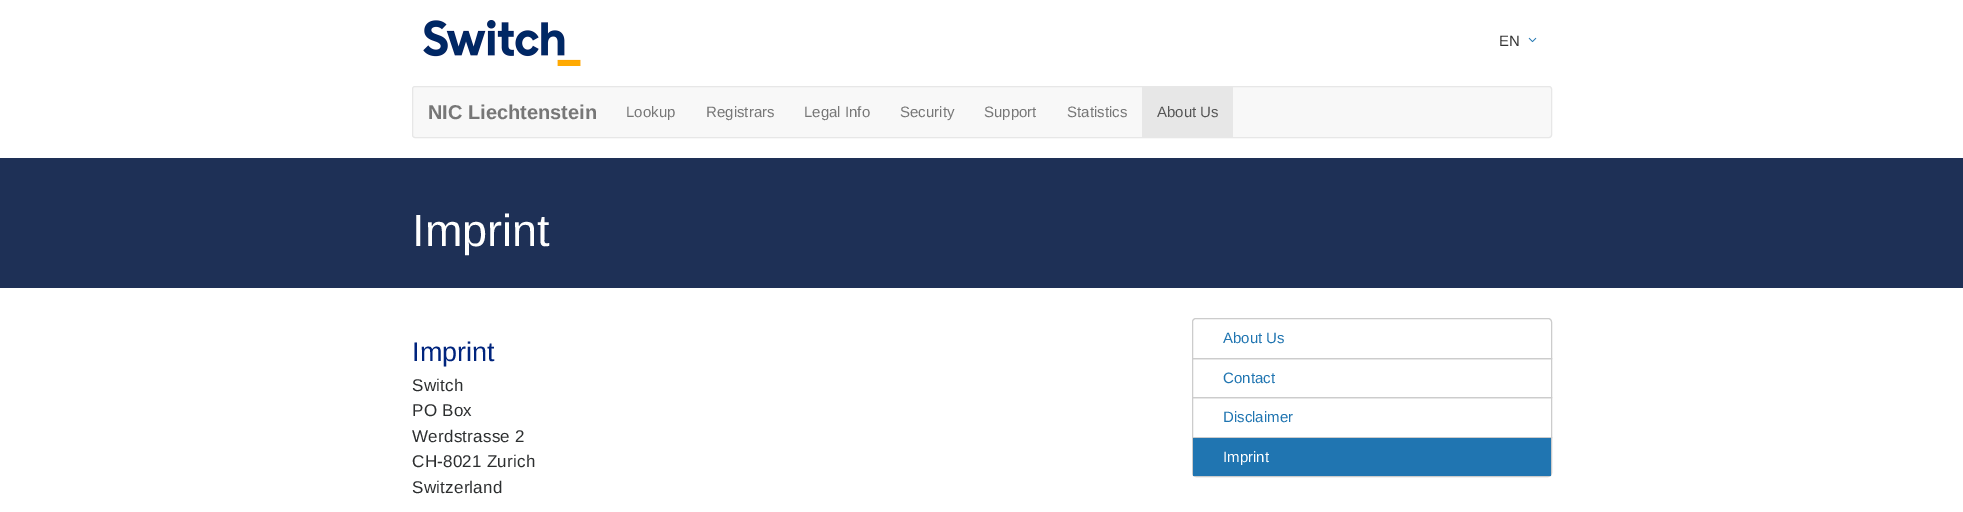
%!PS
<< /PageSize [1963 512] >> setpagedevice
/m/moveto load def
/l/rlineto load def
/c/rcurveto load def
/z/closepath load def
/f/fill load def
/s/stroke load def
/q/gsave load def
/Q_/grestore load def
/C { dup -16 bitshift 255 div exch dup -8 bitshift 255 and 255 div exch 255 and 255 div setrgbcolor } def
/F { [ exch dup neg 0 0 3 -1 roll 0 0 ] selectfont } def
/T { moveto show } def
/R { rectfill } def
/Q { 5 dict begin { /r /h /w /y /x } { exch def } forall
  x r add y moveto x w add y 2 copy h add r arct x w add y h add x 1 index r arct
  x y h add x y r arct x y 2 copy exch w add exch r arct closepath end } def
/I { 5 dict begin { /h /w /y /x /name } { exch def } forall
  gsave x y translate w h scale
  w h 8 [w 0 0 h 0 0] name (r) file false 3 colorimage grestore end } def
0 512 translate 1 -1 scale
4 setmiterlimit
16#FFFFFF C
0 0 1963 512 R
(1.rgb) 423 20 158 46 I
/LiberationSans-Regular 15 F
16#333333 C
(EN) 1499 46 T
(2.rgb) 1528 37 9 6 I
16#F8F8F8 C
412.5 86.5 1139 51 2.5 Q q f Q_
16#E7E7E7 C
s
/LiberationSans-Bold 20 F
16#777777 C
(NIC Liechtenstein) 428 119 T
/LiberationSans-Regular 15 F
(Lookup) 626 117 T
(Registrars) 706 117 T
(Legal Info) 804 117 T
(Security) 900 117 T
(Support) 984 117 T
(Statistics) 1067 117 T
16#E7E7E7 C
1142 87 91 50 R
16#555555 C
(About Us) 1157 117 T
16#1E3056 C
0 158 1963 130 R
/LiberationSans-Regular 45 F
16#FFFFFF C
(Imprint) 412 246 T
/LiberationSans-Regular 27 F
16#00247D C
(Imprint) 412 361 T
/LiberationSans-Regular 17 F
16#2C2E2F C
412 391 m .25 0 (Switch) ashow
412 416 m .25 0 (PO Box) ashow
412 442 m .25 0 (Werdstrasse 2) ashow
412 467 m .25 0 (CH-8021 Zurich) ashow
412 493 m .25 0 (Switzerland) ashow
16#CCCCCC C
1196 318.5 m 352 0 l 2 0 3.5 1.5 3.5 3.5 c 0 36.5 l -359 0 l 0 -36.5 l 0 -2 1.5 -3.5 3.5 -3.5 c z s
/LiberationSans-Regular 15 F
16#2075B1 C
(About Us) 1223 343 T
16#CCCCCC C
1192.5 358.5 359 39 rectstroke
16#2075B1 C
(Contact) 1223 383 T
16#CCCCCC C
1192.5 397.5 359 40 rectstroke
16#2075B1 C
(Disclaimer) 1223 422 T
16#CCCCCC C
1192.5 437.5 m 359 0 l 0 35.5 l 0 2 -1.5 3.5 -3.5 3.5 c -352 0 l -2 0 -3.5 -1.5 -3.5 -3.5 c z s
16#2075B1 C
1193 438 358 38 R
16#FFFFFF C
(Imprint) 1223 462 T
showpage
